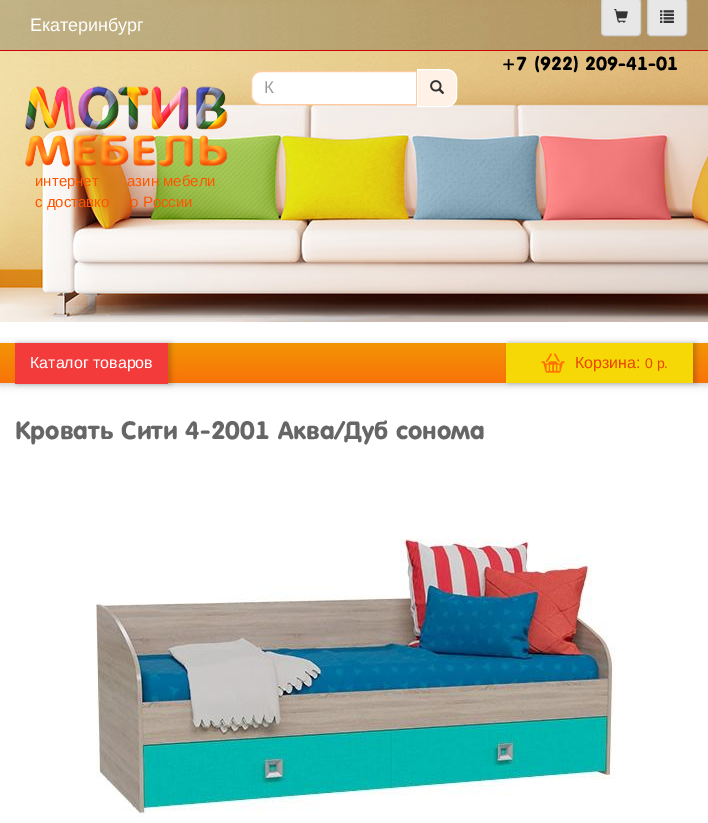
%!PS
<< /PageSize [708 823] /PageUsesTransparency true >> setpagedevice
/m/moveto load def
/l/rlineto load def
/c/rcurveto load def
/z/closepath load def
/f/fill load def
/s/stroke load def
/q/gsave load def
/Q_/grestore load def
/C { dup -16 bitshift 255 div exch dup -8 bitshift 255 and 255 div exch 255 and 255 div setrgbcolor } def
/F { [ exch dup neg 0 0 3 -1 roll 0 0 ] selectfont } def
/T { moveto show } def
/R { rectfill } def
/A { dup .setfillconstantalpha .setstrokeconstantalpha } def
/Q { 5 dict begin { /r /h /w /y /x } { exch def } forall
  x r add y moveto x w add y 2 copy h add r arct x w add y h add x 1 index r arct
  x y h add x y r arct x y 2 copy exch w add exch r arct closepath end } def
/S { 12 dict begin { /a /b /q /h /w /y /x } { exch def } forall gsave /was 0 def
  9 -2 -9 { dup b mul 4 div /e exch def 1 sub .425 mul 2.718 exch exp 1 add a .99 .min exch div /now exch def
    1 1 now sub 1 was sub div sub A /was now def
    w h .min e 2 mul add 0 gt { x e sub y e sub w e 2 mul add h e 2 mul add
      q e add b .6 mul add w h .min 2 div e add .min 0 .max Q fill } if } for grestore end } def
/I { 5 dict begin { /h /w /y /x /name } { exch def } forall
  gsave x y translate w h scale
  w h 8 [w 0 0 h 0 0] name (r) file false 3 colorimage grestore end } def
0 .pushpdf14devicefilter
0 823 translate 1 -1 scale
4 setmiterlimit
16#FFFFFF C
0 0 708 823 R
(1.rgb) 0 0 708 322 I
0.2 A
16#000000 C
0 0 708 50 R
1 A
16#CD0202 C
0 50 708 1 R
/LiberationSans-Regular 18 F
16#FFFFFF C
(Екатеринбург) 30 31 T
16#E7E7E7 C
601.5 -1.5 39 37 3.5 Q q f Q_
16#CECECE C
s
(2.rgb) 614 9 14 14 I
16#E7E7E7 C
647.5 -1.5 39 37 3.5 Q q f Q_
16#CECECE C
s
(3.rgb) 660 10 14 13 I
/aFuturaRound-Bold 18 F
16#000000 C
(+7 \(922\) 209-41-01) 501 70 T
16#FFFFFF C
261 71.5 m 155.5 0 l 0 33 l -155.5 0 l -5 0 -9.5 -4.5 -9.5 -9.5 c 0 -14 l 0 -5 4.5 -9.5 9.5 -9.5 c z q f Q_
16#FECAA0 C
s
/LiberationSans-Regular 17 F
16#9B9B9B C
(К) 264 93 T
16#FFF1E6 C
417.5 69.5 m 29.5 0 l 5 0 9.5 4.5 9.5 9.5 c 0 18 l 0 5 -4.5 9.5 -9.5 9.5 c -29.5 0 l z q f Q_
16#FFFFFF C
s
(4.rgb) 430 80 15 14 I
(5.rgb) 25 86 203 81 I
/LiberationSans-Regular 15 F
16#FF5500 C
(интернет) 35 186 T
(азин мебели) 127 186 T
(с доставко) 35 207 T
(о России) 130 207 T
16#000000 C
0 345 708 40 0 3.5 .2 S
q 0 343 m 708 0 l 0 40 l -708 0 l z clip newpath
<< /ShadingType 2 /ColorSpace /DeviceRGB /Coords [354 343 354 383] /Extend [true true] /Function << /FunctionType 2 /Domain [0 1] /C0 [.953 .584 .02] /C1 [.976 .451 .035] /N 1 >> >> shfill Q_
18 343 153 41 0 2.5 .2 S
16#F43B3B C
15 343 153 41 R
/LiberationSans-Regular 16 F
16#FFFFFF C
(Каталог товаров) 30 368 T
16#000000 C
509 343 187 40 0 2.5 .2 S
16#F7D807 C
506 343 187 40 R
(6.rgb) 541 353 24 20 I
16#E84700 C
(Корзина:) 575 368 T
/LiberationSans-Regular 14 F
(0 р.) 645 368 T
/aFuturaRound-Bold 24 F
16#666666 C
(Кровать Сити 4-2001 Аква/Дуб сонома) 15 439 T
(7.rgb) 96 538 520 279 I
.poppdf14devicefilter showpage
